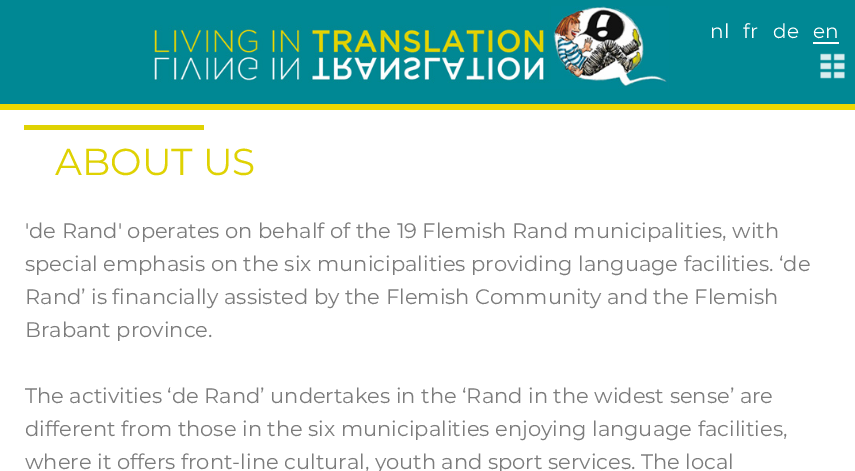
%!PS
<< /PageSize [855 471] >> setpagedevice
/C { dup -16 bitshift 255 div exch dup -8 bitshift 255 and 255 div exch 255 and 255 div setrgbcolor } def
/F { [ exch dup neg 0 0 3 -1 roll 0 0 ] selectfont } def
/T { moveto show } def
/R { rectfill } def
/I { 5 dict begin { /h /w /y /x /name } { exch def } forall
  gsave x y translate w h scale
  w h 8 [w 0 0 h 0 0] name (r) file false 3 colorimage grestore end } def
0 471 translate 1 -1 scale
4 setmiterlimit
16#FFFFFF C
0 0 855 471 R
16#008894 C
0 0 855 104 R
16#EED800 C
0 104 855 6 R
(1.rgb) 150 6 519 83 I
/Montserrat-Regular 20 F
16#FFFFFF C
(nl) 710 38 T
(fr) 743 38 T
(de) 773 38 T
(en) 813 38 T
813 42 26 2 R
(2.rgb) 820 53 25 26 I
16#DFD202 C
24 125 180 5 R
/Montserrat-Regular 37.5 F
(ABOUT US) 55 175 T
/Montserrat-Regular 21 F
16#7C7C7C C
('de Rand' operates on behalf of the 19 Flemish Rand municipalities, with) 25 238 T
(special emphasis on the six municipalities providing language facilities. ‘de) 25 271 T
(Rand’ is financially assisted by the Flemish Community and the Flemish) 25 304 T
(Brabant province.) 25 337 T
(The activities ‘de Rand’ undertakes in the ‘Rand in the widest sense’ are) 25 403 T
(different from those in the six municipalities enjoying language facilities,) 25 436 T
(where it offers front-line cultural, youth and sport services. The local) 25 469 T
showpage
